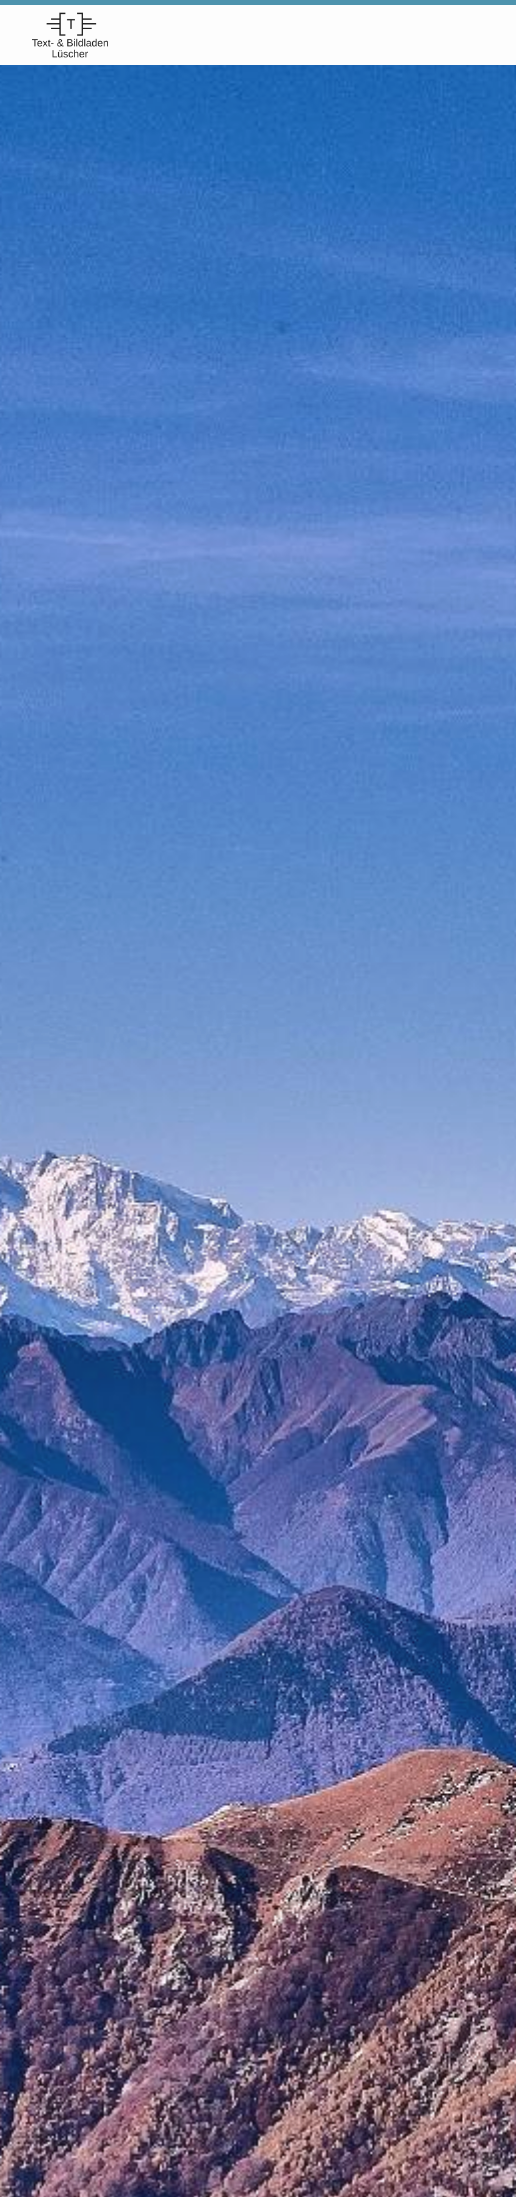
%!PS
<< /PageSize [516 2197] >> setpagedevice
/C { dup -16 bitshift 255 div exch dup -8 bitshift 255 and 255 div exch 255 and 255 div setrgbcolor } def
/R { rectfill } def
/I { 5 dict begin { /h /w /y /x /name } { exch def } forall
  gsave x y translate w h scale
  w h 8 [w 0 0 h 0 0] name (r) file false 3 colorimage grestore end } def
0 2197 translate 1 -1 scale
4 setmiterlimit
16#FDFDFD C
0 0 516 2197 R
16#4D93AD C
0 0 516 5 R
(1.rgb) 32 12 76 46 I
(2.rgb) 0 65 516 2132 I
showpage
